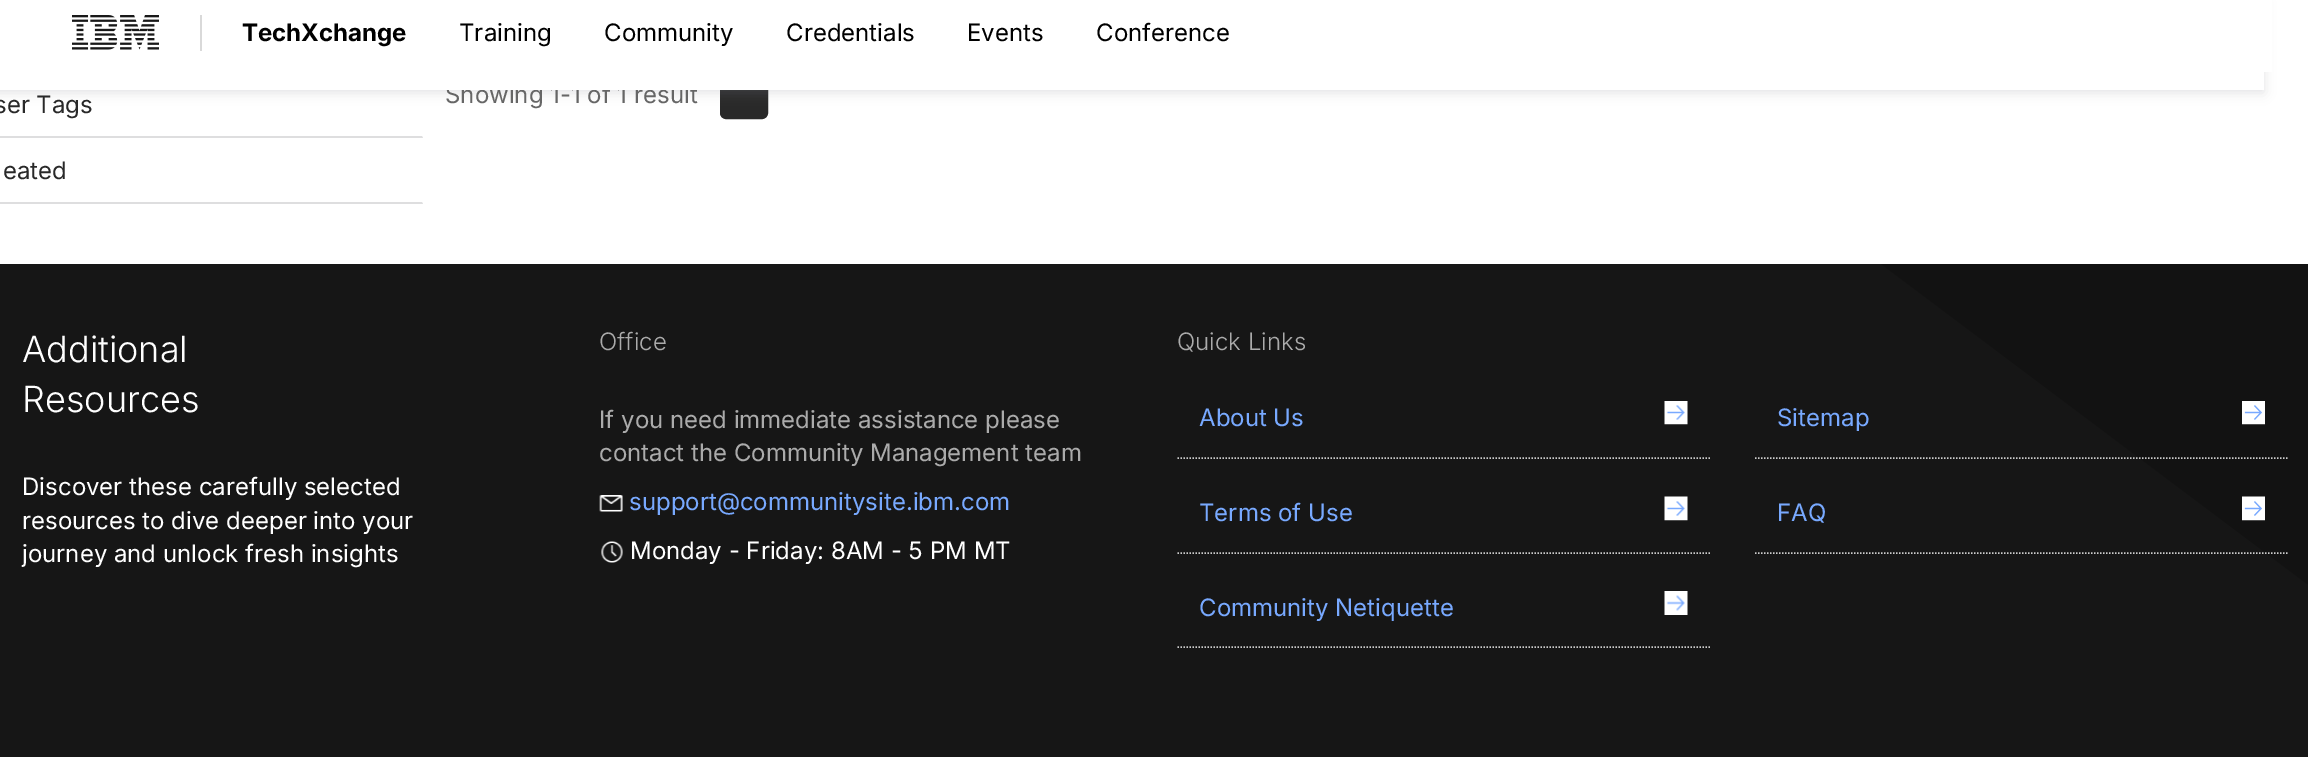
%!PS
<< /PageSize [2308 757] /PageUsesTransparency true >> setpagedevice
/m/moveto load def
/l/rlineto load def
/z/closepath load def
/f/fill load def
/s/stroke load def
/q/gsave load def
/Q_/grestore load def
/w/setlinewidth load def
/C { dup -16 bitshift 255 div exch dup -8 bitshift 255 and 255 div exch 255 and 255 div setrgbcolor } def
/F { [ exch dup neg 0 0 3 -1 roll 0 0 ] selectfont } def
/T { moveto show } def
/R { rectfill } def
/A { dup .setfillconstantalpha .setstrokeconstantalpha } def
/Q { 5 dict begin { /r /h /w /y /x } { exch def } forall
  x r add y moveto x w add y 2 copy h add r arct x w add y h add x 1 index r arct
  x y h add x y r arct x y 2 copy exch w add exch r arct closepath end } def
/S { 12 dict begin { /a /b /q /h /w /y /x } { exch def } forall gsave /was 0 def
  9 -2 -9 { dup b mul 4 div /e exch def 1 sub .425 mul 2.718 exch exp 1 add a .99 .min exch div /now exch def
    1 1 now sub 1 was sub div sub A /was now def
    w h .min e 2 mul add 0 gt { x e sub y e sub w e 2 mul add h e 2 mul add
      q e add b .6 mul add w h .min 2 div e add .min 0 .max Q fill } if } for grestore end } def
/I { 5 dict begin { /h /w /y /x /name } { exch def } forall
  gsave x y translate w h scale
  w h 8 [w 0 0 h 0 0] name (r) file false 3 colorimage grestore end } def
0 .pushpdf14devicefilter
0 757 translate 1 -1 scale
4 setmiterlimit
16#FFFFFF C
0 0 2308 757 R
16#292929 C
721 64 46 54 5 Q q f Q_
2 w
s
16#838791 C
-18 3 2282 90 0 6 .24 S
/Inter-Regular 24 F
16#666666 C
(Showing 1-1 of 1 result) 445 103 T
16#FFFFFF C
0 72 2264 18 R
0 0 2272 72 R
(1.rgb) 72 15 87 35 I
16#D9D9D9 C
200 15 2 36 R
/Inter-Bold 24 F
16#000000 C
(TechXchange) 242 41 T
/Inter-Regular 24 F
(Training) 459 41 T
(Community) 604 41 T
(Credentials) 786 41 T
(Events) 967 41 T
(Conference) 1096 41 T
16#DEDEDF C
423 138 m -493 0 l 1 -2 l 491 0 l z f
16#292929 C
(ser Tags) -6 113 T
16#DEDEDF C
423 204 m -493 0 l 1 -2 l 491 0 l z f
16#292929 C
(eated) 3 179 T
16#161616 C
0 264 2308 493 R
/Inter-Light 36 F
16#FFFFFF C
(Additional) 22 362 T
(Resources) 22 412 T
/Inter-Regular 24 F
(Discover these carefully selected) 22 495 T
(resources to dive deeper into your) 22 529 T
(journey and unlock fresh insights) 22 562 T
/Inter-Light 24 F
16#ABABAB C
(Office) 599 350 T
/Inter-Regular 24 F
(If you need immediate assistance please) 599 428 T
(contact the Community Management team) 599 461 T
(2.rgb) 599 495 24 17 I
16#78A9FF C
(support@communitysite.ibm.com) 629 510 T
(3.rgb) 601 541 22 22 I
16#FFFFFF C
(Monday - Friday: 8AM - 5 PM MT) 630 559 T
/Inter-Light 24 F
16#ABABAB C
(Quick Links) 1177 350 T
16#CCCCCC C
1.5 w
[1.5 1.5] 0 setdash
1177.5 458 m 532.5 0 l s
/Inter-Regular 24 F
16#78A9FF C
(About Us) 1199 426 T
(4.rgb) 1664 401 24 24 I
16#CCCCCC C
1177.5 553 m 532.5 0 l s
16#78A9FF C
(Terms of Use) 1199 521 T
(5.rgb) 1664 496 24 25 I
16#CCCCCC C
1177.5 647 m 532.5 0 l s
16#78A9FF C
(Community Netiquette) 1199 616 T
(6.rgb) 1664 591 24 24 I
16#121212 C
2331 264 m 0 338 l -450 -338 l z f
16#CCCCCC C
1755 458 m 532.5 0 l s
16#78A9FF C
(Sitemap) 1777 426 T
(7.rgb) 2242 401 23 24 I
16#CCCCCC C
1755 553 m 532.5 0 l s
16#78A9FF C
(FAQ) 1777 521 T
(8.rgb) 2242 496 23 25 I
.poppdf14devicefilter showpage
